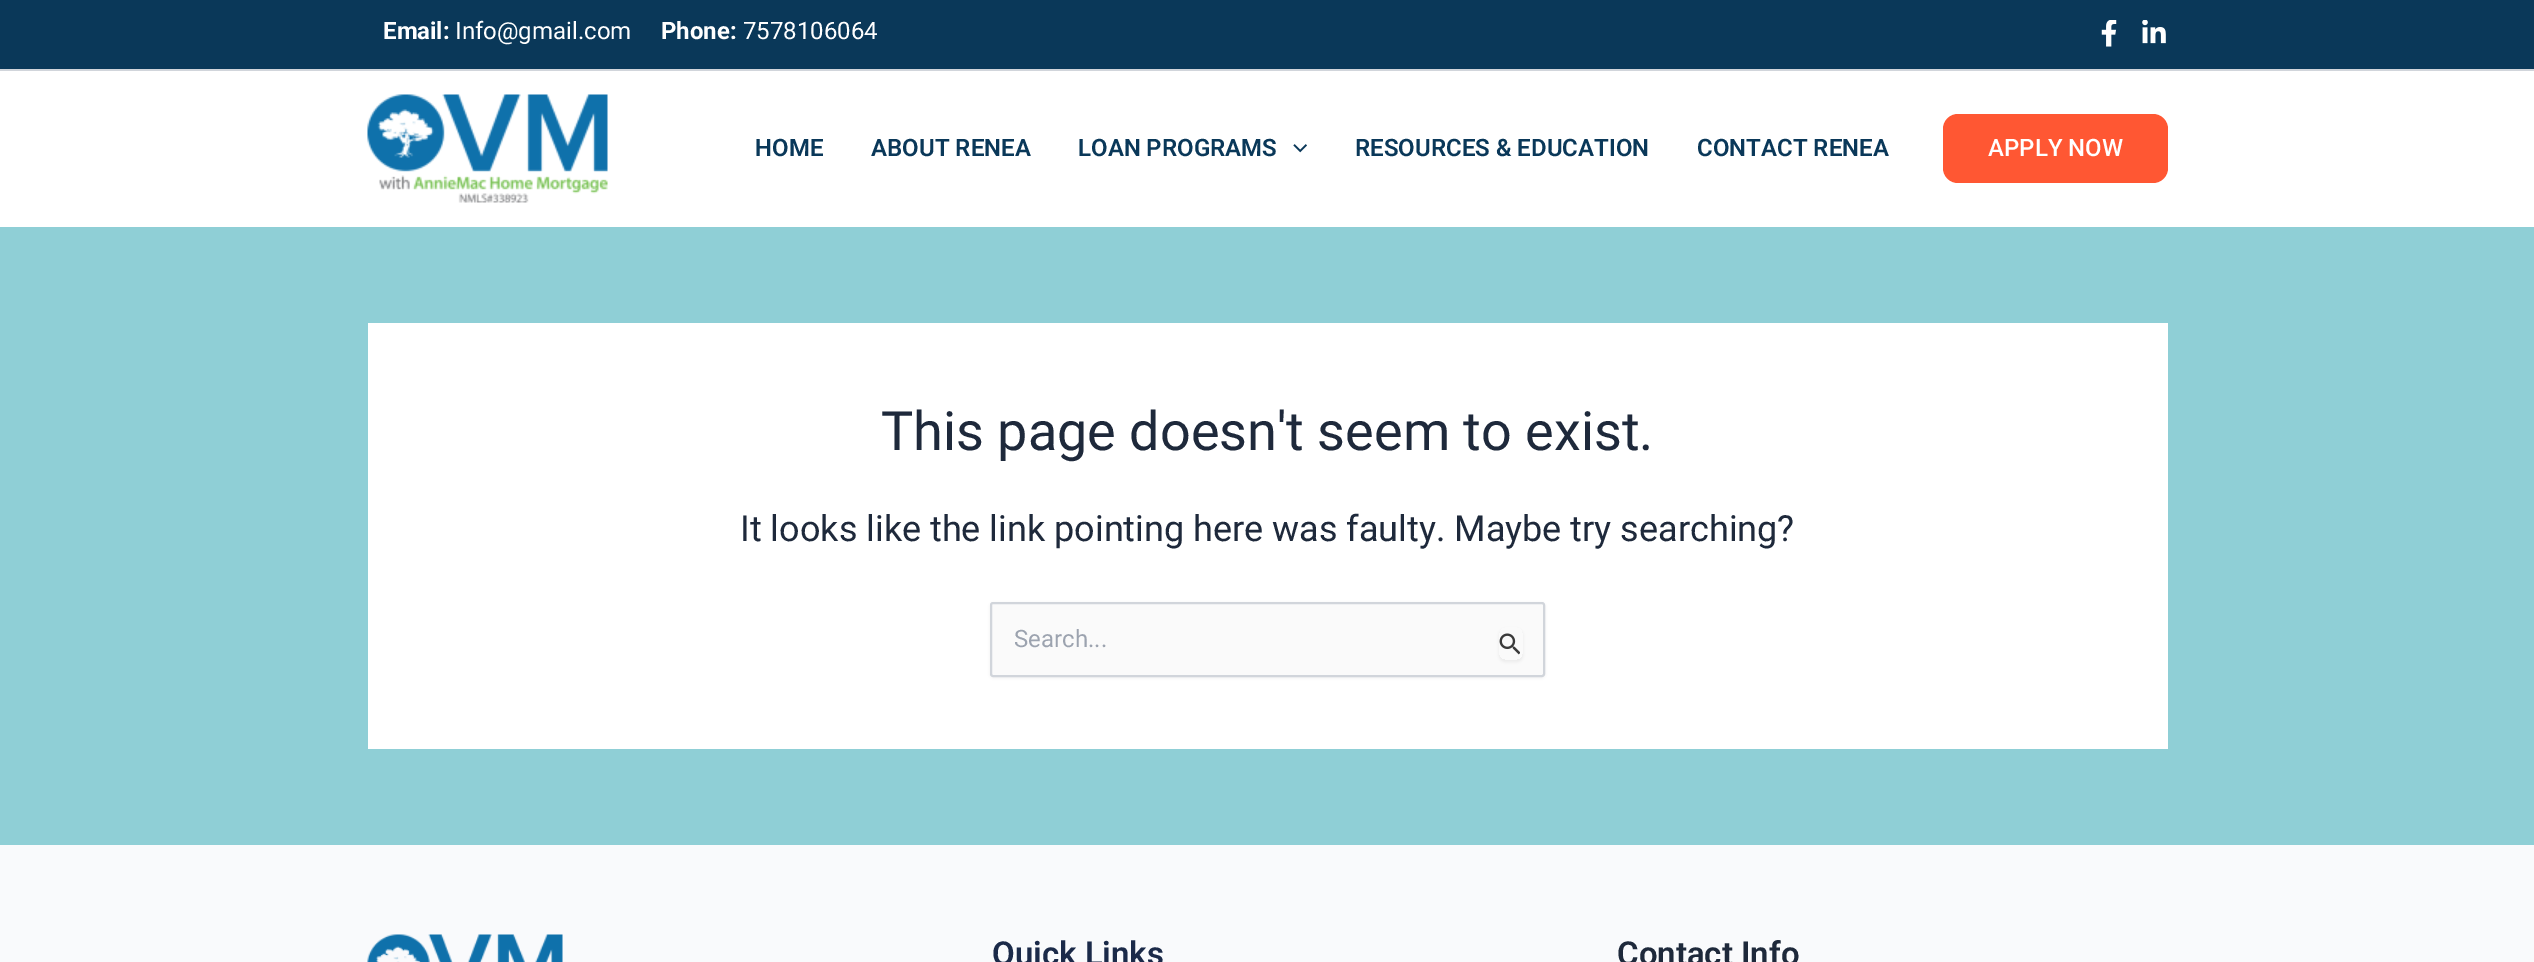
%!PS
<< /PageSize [2534 962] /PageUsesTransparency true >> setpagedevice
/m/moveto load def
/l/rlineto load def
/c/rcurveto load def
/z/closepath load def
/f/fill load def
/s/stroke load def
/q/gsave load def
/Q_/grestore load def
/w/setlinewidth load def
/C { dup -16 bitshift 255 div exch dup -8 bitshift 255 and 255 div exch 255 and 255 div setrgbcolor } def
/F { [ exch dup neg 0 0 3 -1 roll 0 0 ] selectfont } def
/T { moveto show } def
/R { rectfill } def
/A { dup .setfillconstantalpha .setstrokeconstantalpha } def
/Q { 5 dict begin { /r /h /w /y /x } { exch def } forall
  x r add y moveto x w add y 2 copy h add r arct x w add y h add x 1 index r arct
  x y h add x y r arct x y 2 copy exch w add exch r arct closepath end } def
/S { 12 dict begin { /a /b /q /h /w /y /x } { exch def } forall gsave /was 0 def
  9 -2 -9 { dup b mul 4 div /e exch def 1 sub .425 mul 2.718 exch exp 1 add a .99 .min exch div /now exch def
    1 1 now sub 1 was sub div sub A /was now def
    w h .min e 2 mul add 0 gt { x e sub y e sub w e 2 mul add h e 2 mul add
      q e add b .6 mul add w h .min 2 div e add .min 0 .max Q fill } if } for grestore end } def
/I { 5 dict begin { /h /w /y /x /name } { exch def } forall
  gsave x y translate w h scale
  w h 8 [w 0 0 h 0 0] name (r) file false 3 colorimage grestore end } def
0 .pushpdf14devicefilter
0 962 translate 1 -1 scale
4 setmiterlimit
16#8FCFD6 C
0 0 2534 962 R
16#0A3859 C
0 0 2534 69 R
16#D1D5DB C
0 69 2534 2 R
/Roboto-Bold 24 F
16#FFFFFF C
(Email:) 383 39 T
/Roboto-Regular 24 F
(Info@gmail.com) 455 39 T
/Roboto-Bold 24 F
(Phone:) 661 39 T
/Roboto-Regular 24 F
(7578106064) 743 39 T
(1.rgb) 2101 20 16 27 I
(2.rgb) 2142 20 24 24 I
0 71 2534 156 R
(3.rgb) 367 94 241 109 I
/Roboto-SemiBold 24 F
16#0A3859 C
(HOME) 755 156 T
(ABOUT RENEA) 871 156 T
(LOAN PROGRAMS) 1078 156 T
(4.rgb) 1293 144 14 9 I
(RESOURCES & EDUCATION) 1355 156 T
(CONTACT RENEA) 1697 156 T
16#FF5733 C
1943 114 225 69 15 Q f
/Roboto-Medium 24 F
16#FFFFFF C
(APPLY NOW) 1988 156 T
368 323 1800 426 R
/Roboto-Regular 54 F
16#1E293B C
(This page doesn't seem to exist.) 881 450 T
/Roboto-Regular 36 F
(It looks like the link pointing here was faulty. Maybe try searching?) 740 541 T
16#000000 C
990 603 555 75 3 1.5 .05 S
16#FAFAFA C
991 603 553 73 2 Q q f Q_
16#D1D5DB C
2 w
s
/Roboto-Regular 24 F
16#9CA3AF C
(Search...) 1014 647 T
q
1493 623 m 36 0 l 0 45 l -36 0 l z 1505 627 m 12 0 l 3.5 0 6 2.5 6 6 c 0 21 l 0 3.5 -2.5 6 -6 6 c -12 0 l -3.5 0 -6 -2.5 -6 -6 c 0 -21 l 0 -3.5 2.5 -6 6 -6 c z eoclip newpath
16#000000 C
1499 629 24 33 6 1.5 .05 S
Q_
(5.rgb) 1499 633 21 22 I
16#F9FAFC C
0 845 2534 117 R
(6.rgb) 367 934 196 28 I
/Roboto-SemiBold 33 F
16#1B2A49 C
(Quick Links) 992 965 T
16#1E293B C
(Contact Info) 1617 965 T
.poppdf14devicefilter showpage
